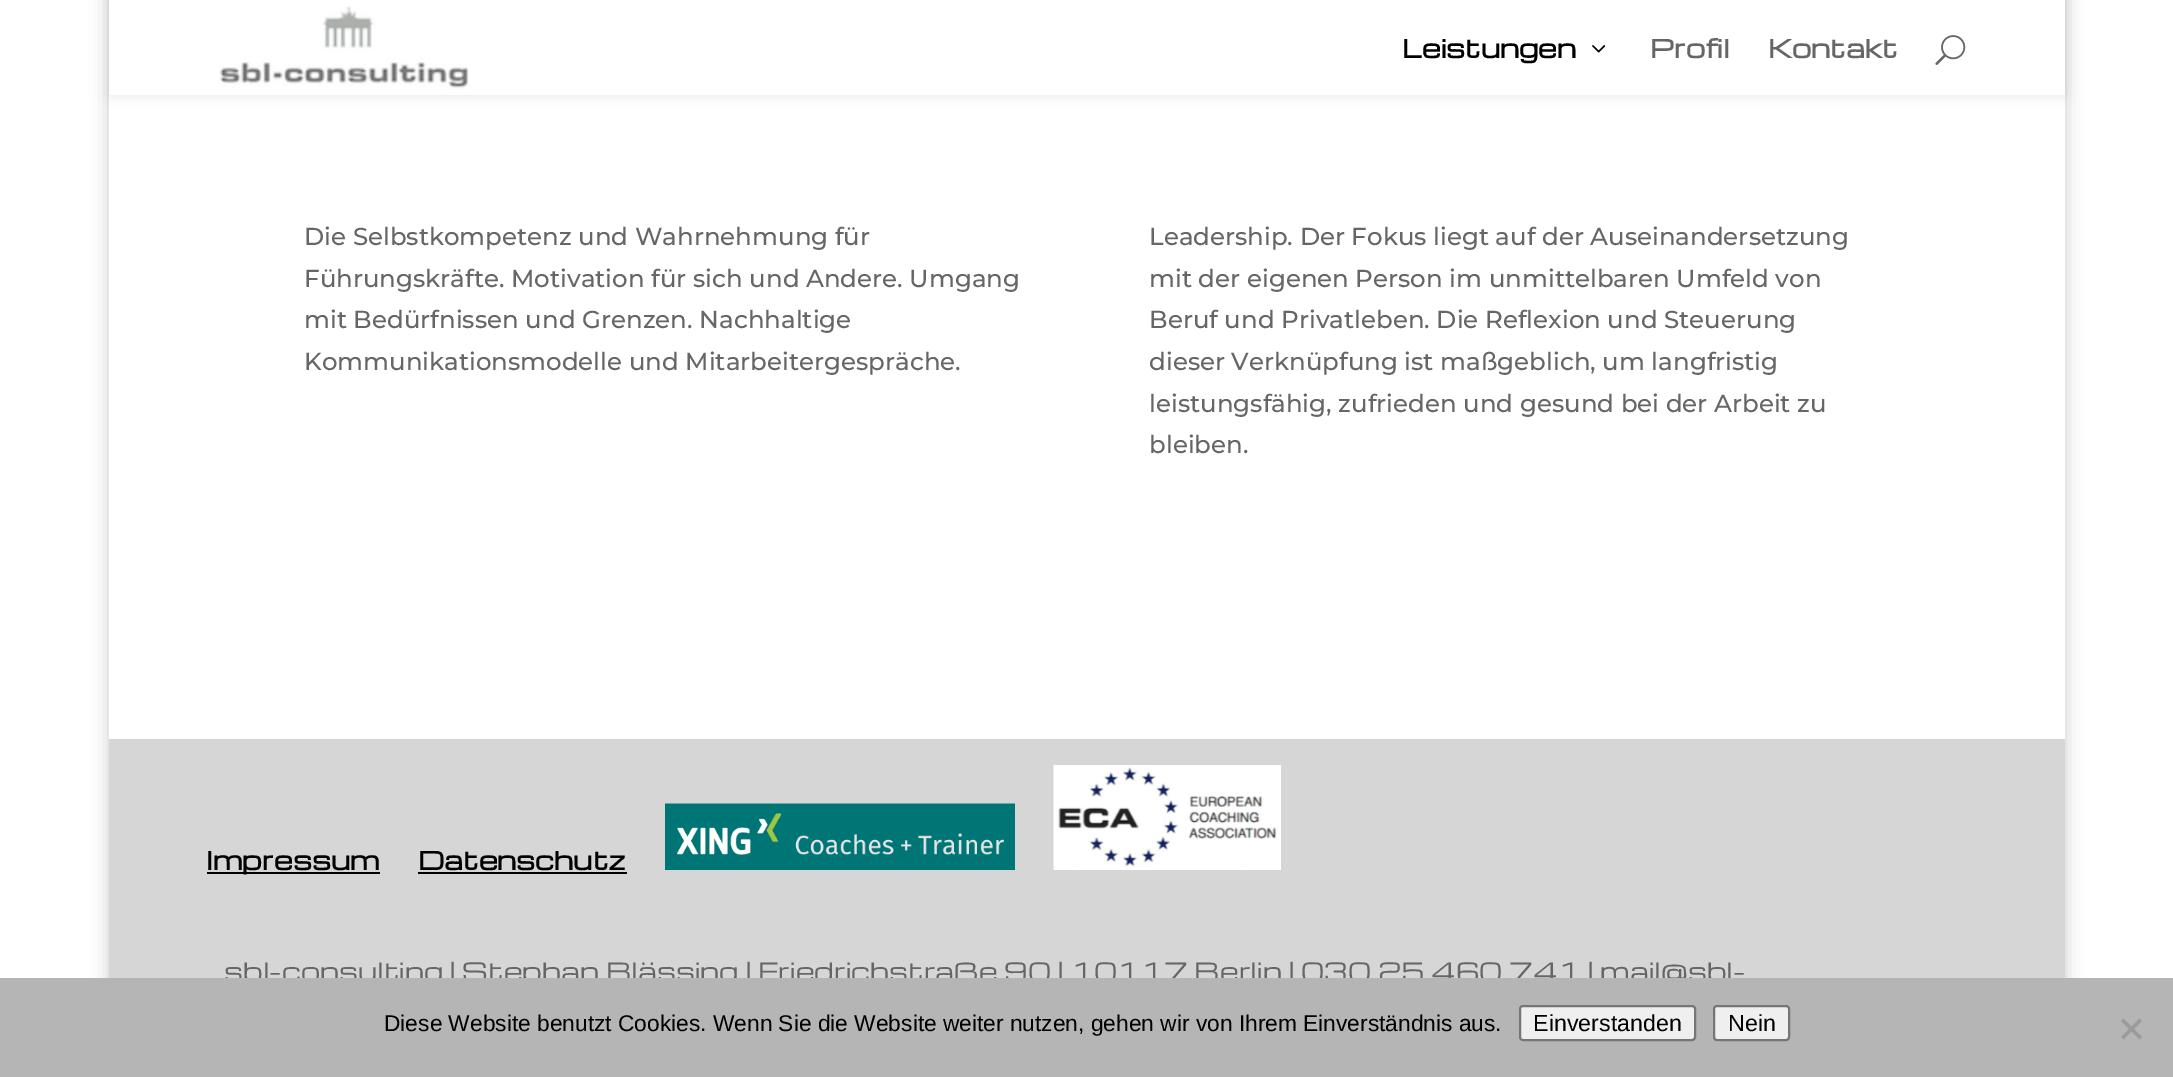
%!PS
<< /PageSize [2173 1077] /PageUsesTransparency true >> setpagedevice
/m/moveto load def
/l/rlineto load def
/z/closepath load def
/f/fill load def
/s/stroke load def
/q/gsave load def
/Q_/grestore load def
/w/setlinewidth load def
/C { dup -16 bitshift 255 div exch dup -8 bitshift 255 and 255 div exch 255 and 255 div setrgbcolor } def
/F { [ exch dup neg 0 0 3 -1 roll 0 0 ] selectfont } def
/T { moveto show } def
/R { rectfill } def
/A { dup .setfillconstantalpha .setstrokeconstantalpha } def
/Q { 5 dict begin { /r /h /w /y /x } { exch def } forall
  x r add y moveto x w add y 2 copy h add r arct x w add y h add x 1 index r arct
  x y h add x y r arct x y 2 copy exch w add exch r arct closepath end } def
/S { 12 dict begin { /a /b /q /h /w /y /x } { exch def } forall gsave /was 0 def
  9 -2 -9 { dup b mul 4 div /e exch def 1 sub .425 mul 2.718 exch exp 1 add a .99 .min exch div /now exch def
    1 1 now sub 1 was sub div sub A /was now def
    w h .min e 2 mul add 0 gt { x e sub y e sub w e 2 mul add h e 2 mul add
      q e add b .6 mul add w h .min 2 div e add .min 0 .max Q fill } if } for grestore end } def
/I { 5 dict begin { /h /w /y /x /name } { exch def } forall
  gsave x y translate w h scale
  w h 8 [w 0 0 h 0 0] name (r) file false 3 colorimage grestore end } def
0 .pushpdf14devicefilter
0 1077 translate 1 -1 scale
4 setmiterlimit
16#FFFFFF C
0 0 2173 1077 R
q
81 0 m 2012 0 l 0 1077 l -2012 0 l z 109 -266 m 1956 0 l 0 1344 l -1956 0 l z eoclip newpath
16#000000 C
109 -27 1956 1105 0 9 .2 S
Q_
16#000000 C
109 0 1956 95 0 6 .1 S
16#FFFFFF C
109 0 1956 95 R
(1.rgb) 219 6 250 83 I
/Michroma-Bold 24.5 F
16#000000 C
(Leistungen) 1402 58 T
(2.rgb) 1592 45 14 8 I
16#666666 C
(Profil) 1650 58 T
(Kontakt) 1768 58 T
(3.rgb) 1935 35 31 30 I
/Montserrat-Medium 24.5 F
(Die Selbstkompetenz und Wahrnehmung für) 304 245 T
(Führungskräfte. Motivation für sich und Andere. Umgang) 304 287 T
(mit Bedürfnissen und Grenzen. Nachhaltige) 304 328 T
(Kommunikationsmodelle und Mitarbeitergespräche.) 304 370 T
(Leadership. Der Fokus liegt auf der Auseinandersetzung) 1149 245 T
(mit der eigenen Person im unmittelbaren Umfeld von) 1149 287 T
(Beruf und Privatleben. Die Reflexion und Steuerung) 1149 328 T
(dieser Verknüpfung ist maßgeblich, um langfristig) 1149 370 T
(leistungsfähig, zufrieden und gesund bei der Arbeit zu) 1149 412 T
(bleiben.) 1149 453 T
16#D6D6D6 C
109 739 1956 239 R
16#000000 C
207 872 173 2 R
/Michroma-Bold 24.5 F
(Impressum) 206 870 T
(Datenschutz) 418 870 T
418 872 209 2 R
(4.rgb) 665 803 350 67 I
(5.rgb) 1053 765 228 105 I
/Michroma-Regular 24.5 F
16#666666 C
(sbl-consulting | Stephan Blässing | Friedrichstraße 90 | 10117 Berlin | 030 25 460 741 | mail@sbl-) 224 981 T
16#B5B5B5 C
0 978 2173 99 R
/LiberationSans-Regular 22.75 F
16#000000 C
(Diese Website benutzt Cookies. Wenn Sie die Website weiter nutzen, gehen wir von Ihrem Einverständnis aus.) 384 1031 T
16#EFEFEF C
1520 1006 175 34 3 Q q f Q_
16#767676 C
2 w
s
/LiberationSans-Regular 23.25 F
16#000000 C
(Einverstanden) 1533 1031 T
16#EFEFEF C
1714 1006 75 34 3 Q q f Q_
16#767676 C
s
16#000000 C
(Nein) 1728 1031 T
16#9B9B9B C
2139.5 1018.5 m 2.5 2.5 l -18.5 18.5 l -2.5 -2.5 l z f
2121 1021 m 2.5 -2.5 l 18.5 18.5 l -2.5 2.5 l z f
.poppdf14devicefilter showpage
